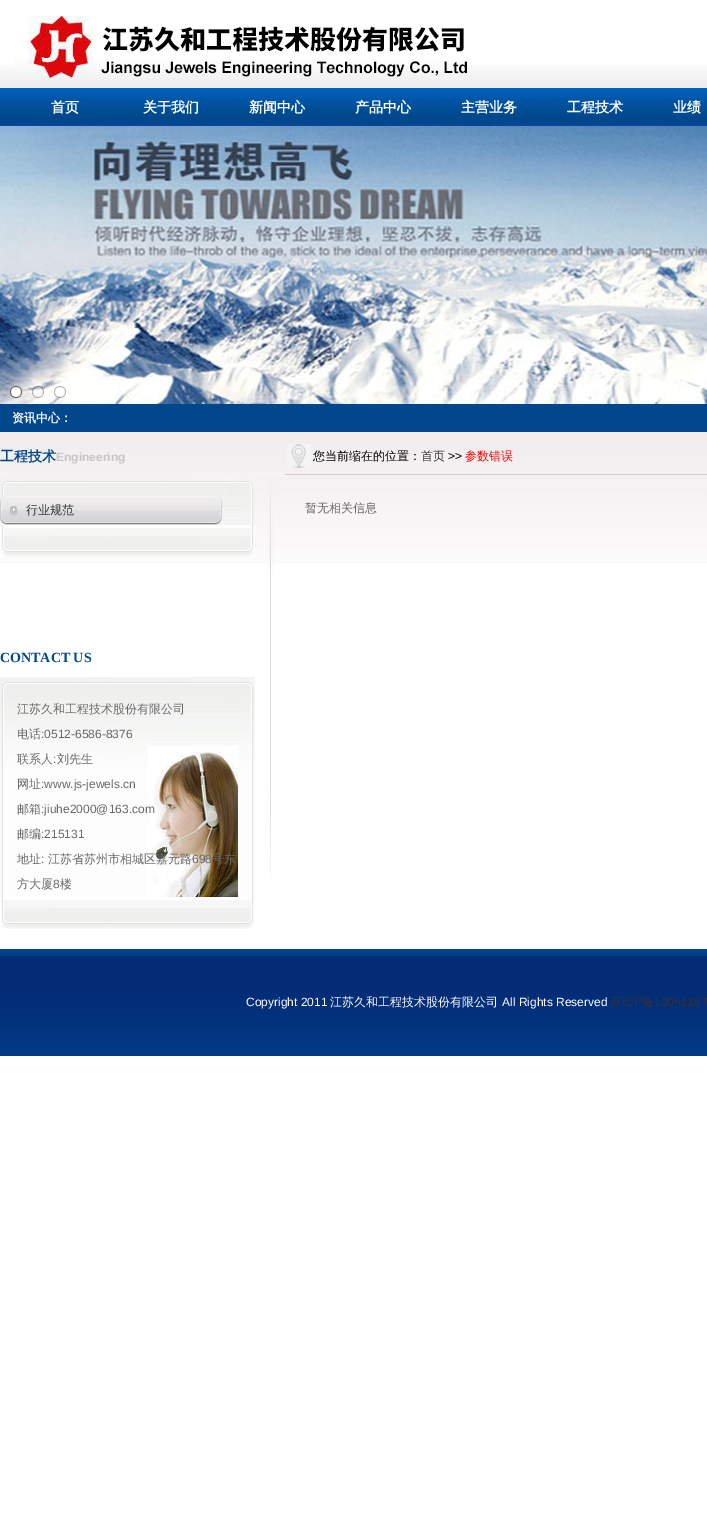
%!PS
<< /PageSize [707 1538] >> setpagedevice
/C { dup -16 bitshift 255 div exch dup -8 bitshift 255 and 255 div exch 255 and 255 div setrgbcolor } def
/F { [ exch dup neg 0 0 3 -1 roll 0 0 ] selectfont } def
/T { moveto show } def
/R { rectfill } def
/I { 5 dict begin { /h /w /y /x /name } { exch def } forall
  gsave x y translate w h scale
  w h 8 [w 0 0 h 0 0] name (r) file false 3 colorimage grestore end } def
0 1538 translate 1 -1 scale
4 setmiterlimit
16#FFFFFF C
0 0 707 1538 R
(1.rgb) 0 65 707 61 I
(2.rgb) 12 15 456 65 I
/WenQuanYiZenHei-Bold 14 F
(首页) 51 112 T
(关于我们) 143 112 T
(新闻中心) 249 112 T
(产品中心) 355 112 T
(主营业务) 461 112 T
(工程技术) 567 112 T
(业绩) 673 112 T
(3.rgb) 0 126 707 278 I
(4.rgb) 10 386 12 12 I
(5.rgb) 32 386 12 12 I
(6.rgb) 54 386 12 12 I
16#01478C C
0 404 707 28 R
/WenQuanYiZenHei-Bold 12 F
16#FFFFFF C
(资讯中心：) 12 422 T
(7.rgb) 0 432 707 132 I
/WenQuanYiZenHei-Bold 14 F
16#01478C C
(工程技术) 0 461 T
/LiberationSans-Bold 12 F
16#C7C5C6 C
(Engineering) 56 461 T
(8.rgb) 0 477 255 48 I
(9.rgb) 0 496 222 29 I
/WenQuanYiZenHei-Medium 12 F
16#333333 C
(行业规范) 26 514 T
(10.rgb) 0 525 255 32 I
(11.rgb) 268 484 5 398 I
16#CCCCCC C
285 474 422 1 R
(12.rgb) 287 444 24 24 I
16#000000 C
(您当前缩在的位置：) 313 460 T
16#333333 C
(首页) 421 460 T
/LiberationSans-Regular 12 F
16#000000 C
(>>) 448 460 T
/WenQuanYiZenHei-Medium 12 F
16#FF0000 C
(参数错误) 465 460 T
16#6A6869 C
(暂无相关信息) 305 512 T
/LiberationSerif-Bold 14 F
16#01478C C
(CONTACT US) 0 662 T
(13.rgb) 0 677 255 220 I
(14.rgb) 148 746 90 151 I
/WenQuanYiZenHei-Medium 12 F
16#6A6869 C
(江苏久和工程技术股份有限公司) 17 713 T
(电话) 17 738 T
/LiberationSans-Regular 12 F
(:0512-6586-8376) 41 738 T
/WenQuanYiZenHei-Medium 12 F
(联系人 刘先生) 17 763 T
/LiberationSans-Regular 12 F
(:) 53 763 T
/WenQuanYiZenHei-Medium 12 F
(网址) 17 788 T
/LiberationSans-Regular 12 F
(:www.js-jewels.cn) 41 788 T
/WenQuanYiZenHei-Medium 12 F
(邮箱) 17 813 T
/LiberationSans-Regular 12 F
(:jiuhe2000@163.com) 41 813 T
/WenQuanYiZenHei-Medium 12 F
(邮编) 17 838 T
/LiberationSans-Regular 12 F
(:215131) 41 838 T
/WenQuanYiZenHei-Medium 12 F
(地址) 17 863 T
/LiberationSans-Regular 12 F
(:) 41 863 T
/WenQuanYiZenHei-Medium 12 F
(江苏省苏州市相城区嘉元路) 48 863 T
/LiberationSans-Regular 12 F
(698) 192 863 T
/WenQuanYiZenHei-Medium 12 F
(号东) 212 863 T
(方大厦) 17 888 T
/LiberationSans-Regular 12 F
(8) 53 888 T
/WenQuanYiZenHei-Medium 12 F
(楼) 60 888 T
(15.rgb) 1 897 254 32 I
(16.rgb) 0 949 707 107 I
/LiberationSans-Regular 12 F
16#FFFFFF C
(Copyright 2011) 246 1006 T
/WenQuanYiZenHei-Medium 12 F
(江苏久和工程技术股份有限公司) 330 1006 T
/LiberationSans-Regular 12 F
(All Rights Reserved) 502 1006 T
/WenQuanYiZenHei-Medium 12 F
16#333333 C
(苏) 610 1006 T
/LiberationSans-Regular 12 F
(ICP) 622 1006 T
/WenQuanYiZenHei-Medium 12 F
(备) 642 1006 T
/LiberationSans-Regular 12 F
(13051167) 654 1006 T
showpage
